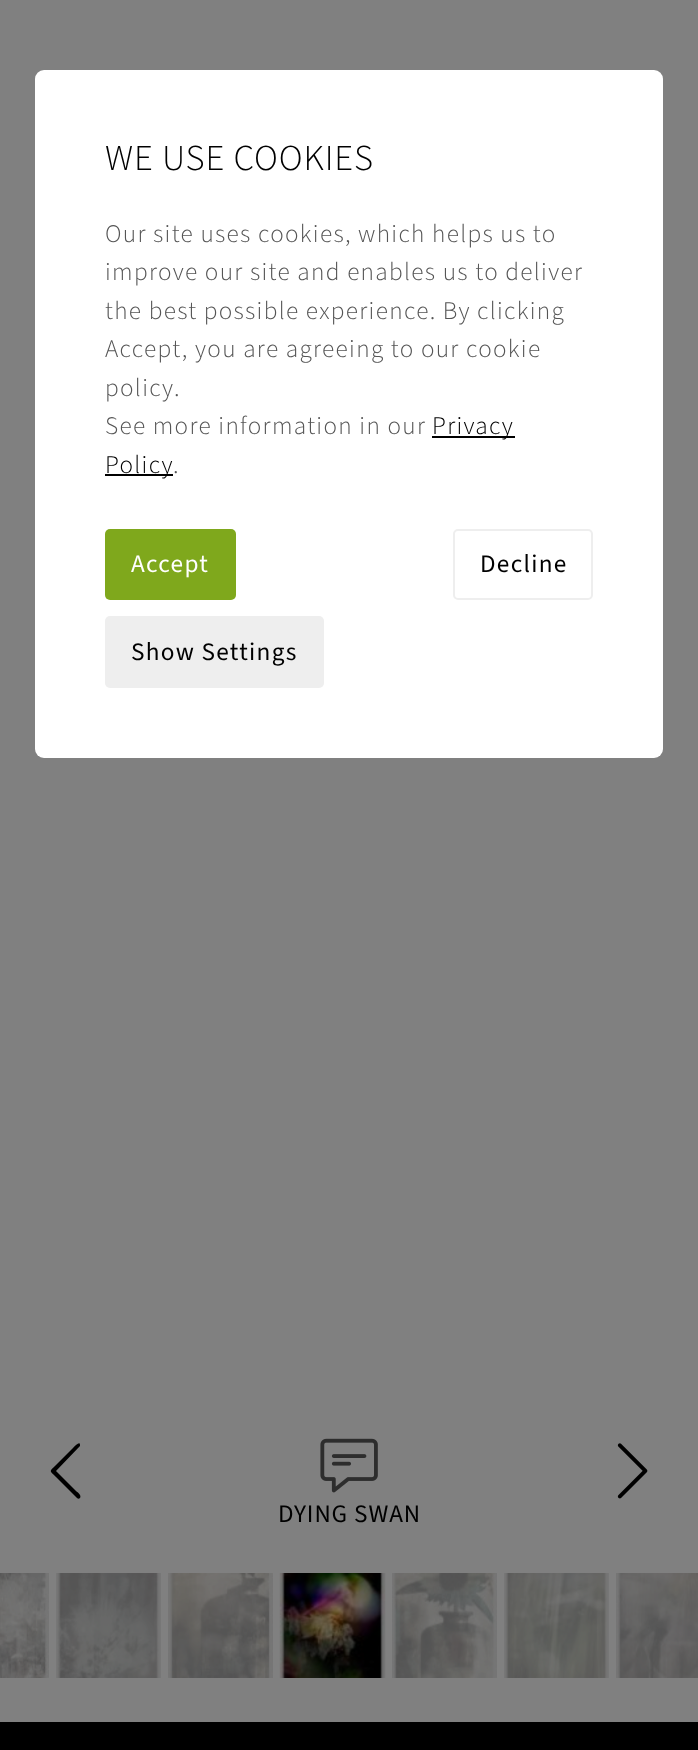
<svg xmlns="http://www.w3.org/2000/svg" width="698" height="1750" viewBox="0 0 698 1750">
  <style>
    .t1 { font: 300 36.5px 'Source Sans 3'; letter-spacing: 0.9px; fill: #000; }
    .t2 { font: 300 25.25px 'Source Sans 3'; letter-spacing: 1.3px; fill: #555; }
    .t3 { font: 300 25.25px 'Source Sans 3'; letter-spacing: 1.3px; fill: #000; }
    .t4 { font: 25.25px 'Source Sans 3'; letter-spacing: 1.3px; fill: #fff; }
    .t5 { font: 25.25px 'Source Sans 3'; letter-spacing: 1.3px; fill: #000; }
    .t6 { font: 25.25px 'Source Sans 3'; letter-spacing: 0.9px; fill: #000; }
  </style>
  <rect width="100%" height="100%" fill="#808080"/>
  <rect x="35" y="70" width="628" height="688" rx="9" fill="#fff"/>
  <text x="105" y="170" class="t1">WE USE COOKIES</text>
  <text x="105" y="242" class="t2">Our site uses cookies, which helps us to</text>
  <text x="105" y="280" class="t2">improve our site and enables us to deliver</text>
  <text x="105" y="319" class="t2">the best possible experience. By clicking</text>
  <text x="105" y="357" class="t2">Accept, you are agreeing to our cookie</text>
  <text x="105" y="396" class="t2">policy.</text>
  <text x="105" y="434" class="t2">See more information in our</text>
  <rect x="432" y="436" width="83" height="2" fill="#000"/>
  <text x="432" y="434" class="t3">Privacy</text>
  <rect x="105" y="474" width="68" height="2" fill="#000"/>
  <text x="105" y="473" class="t3">Policy</text>
  <text x="173" y="473" class="t2">.</text>
  <rect x="105" y="529" width="131" height="71" rx="5" fill="#7fa81c"/>
  <text x="131" y="572" class="t4">Accept</text>
  <rect x="454" y="530" width="138" height="69" rx="4" fill="none" stroke="#eee" stroke-width="2"/>
  <text x="480" y="572" class="t5">Decline</text>
  <rect x="105" y="616" width="219" height="72" rx="5" fill="#eee"/>
  <text x="131" y="660" class="t5">Show Settings</text>
  <path d="M77 1498C78 1499 79 1499 80 1498C82 1495 77 1492 76 1491L56 1471L80 1446V1445C80 1441 76 1445 73 1448L56 1465C49 1472 49 1470 56 1477Z" fill="#000"/>
  <image x="320" y="1438" width="58" height="55" href="images/1.png"/>
  <image x="617" y="1443" width="31" height="56" href="images/2.png"/>
  <text x="278" y="1522" class="t6">DYING SWAN</text>
  <rect x="0" y="1573" width="49" height="105" fill="#777"/>
  <image x="0" y="1573" width="49" height="105" href="images/3.png"/>
  <rect x="56" y="1573" width="105" height="105" fill="#777"/>
  <image x="57" y="1573" width="103" height="105" href="images/4.png"/>
  <rect x="168" y="1573" width="105" height="105" fill="#777"/>
  <image x="168" y="1573" width="105" height="105" href="images/5.png"/>
  <image x="279" y="1573" width="107" height="105" href="images/6.png"/>
  <rect x="392" y="1573" width="105" height="105" fill="#777"/>
  <image x="392" y="1573" width="105" height="105" href="images/7.png"/>
  <rect x="504" y="1573" width="105" height="105" fill="#777"/>
  <image x="505" y="1573" width="103" height="105" href="images/8.png"/>
  <rect x="616" y="1573" width="82" height="105" fill="#777"/>
  <image x="616" y="1573" width="82" height="105" href="images/9.png"/>
  <rect x="0" y="1722" width="698" height="28" fill="#000"/>
</svg>
